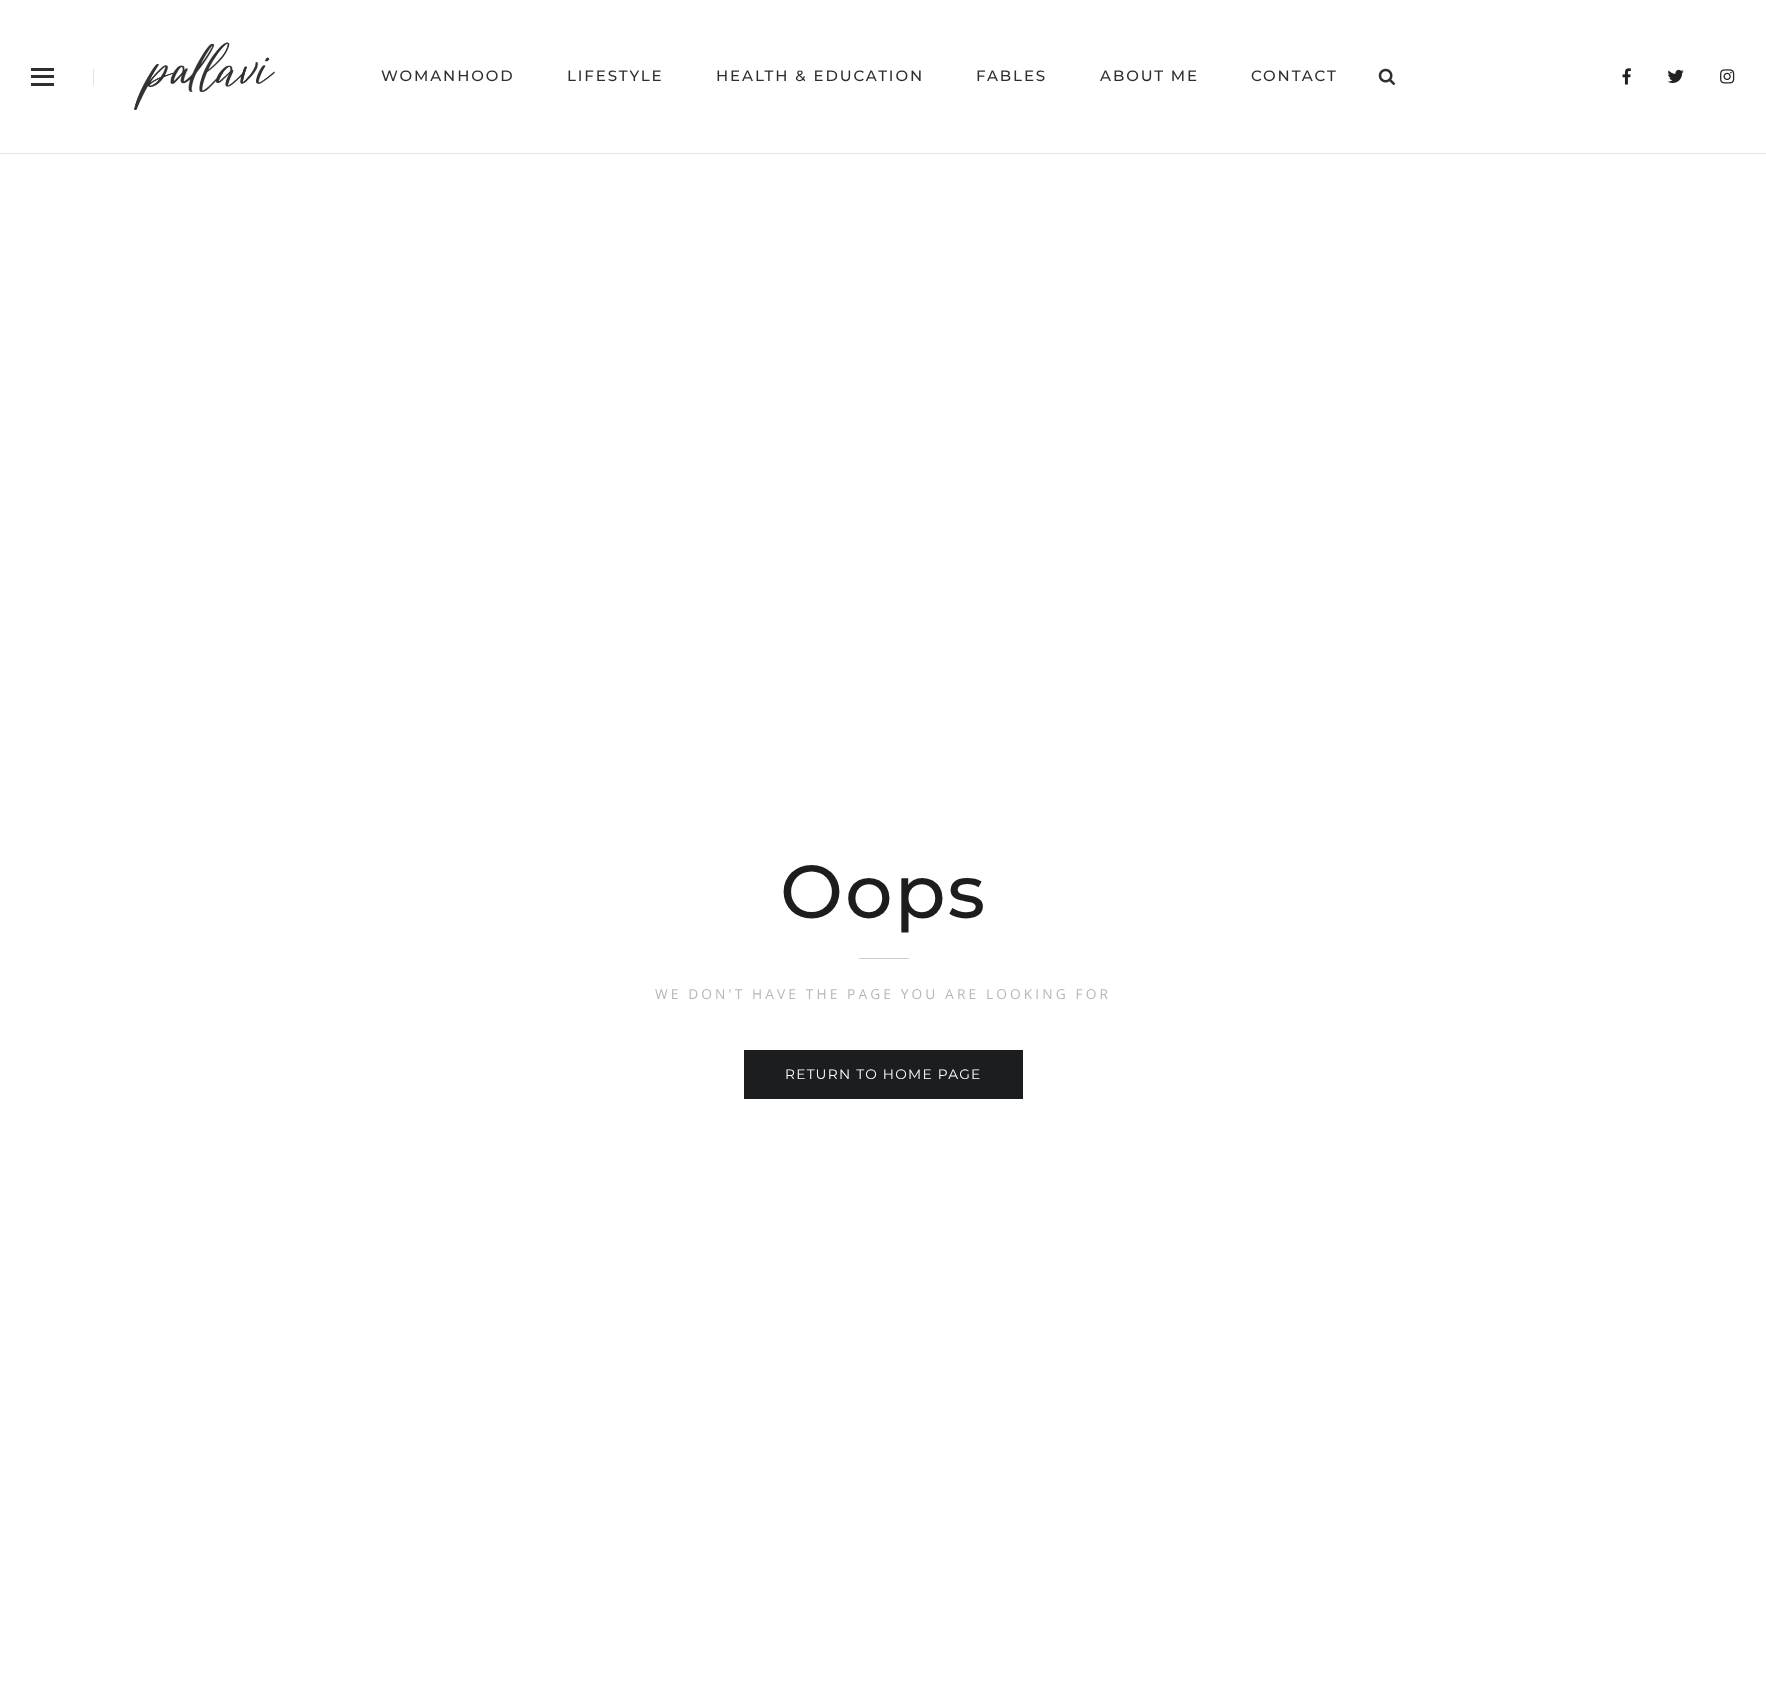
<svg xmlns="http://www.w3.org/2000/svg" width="1766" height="1691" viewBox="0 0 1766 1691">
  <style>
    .t1 { font: 500 15px Montserrat; letter-spacing: 1.9px; fill: #2c2e30; }
    .t2 { font: 500 75px Montserrat; letter-spacing: 1.9px; fill: #1c1d1f; }
    .t3 { font: 13.75px Open Sans; letter-spacing: 3.1px; fill: #b8b6bb; }
    .t4 { font: 13.75px Montserrat; letter-spacing: 1.25px; fill: #fff; }
  </style>
  <rect width="100%" height="100%" fill="#fff"/>
  <rect x="0" y="153" width="1766" height="1" fill="#e5e6e8"/>
  <rect x="31" y="68" width="23" height="3" fill="#2c2e30"/>
  <rect x="93" y="69" width="1" height="16" fill="#e1e1e1"/>
  <rect x="31" y="75" width="23" height="3" fill="#2c2e30"/>
  <rect x="31" y="83" width="23" height="3" fill="#2c2e30"/>
  <image x="134" y="42" width="141" height="68" href="images/1.png"/>
  <text x="381" y="81" class="t1">WOMANHOOD</text>
  <text x="567" y="81" class="t1">LIFESTYLE</text>
  <text x="716" y="81" class="t1">HEALTH &amp; EDUCATION</text>
  <text x="976" y="81" class="t1">FABLES</text>
  <text x="1100" y="81" class="t1">ABOUT ME</text>
  <text x="1251" y="81" class="t1">CONTACT</text>
  <image x="1378" y="68" width="17" height="17" href="images/2.png"/>
  <image x="1622" y="68" width="9" height="17" href="images/3.png"/>
  <image x="1667" y="69" width="17" height="14" href="images/4.png"/>
  <image x="1720" y="69" width="15" height="15" href="images/5.png"/>
  <text x="780" y="918" class="t2">Oops</text>
  <rect x="859" y="958" width="50" height="1" fill="#ccc"/>
  <text x="655" y="999" class="t3">WE DON'T HAVE THE PAGE YOU ARE LOOKING FOR</text>
  <rect x="744" y="1050" width="279" height="49" fill="#1c1d1f"/>
  <text x="785" y="1079" class="t4">RETURN TO HOME PAGE</text>
</svg>
